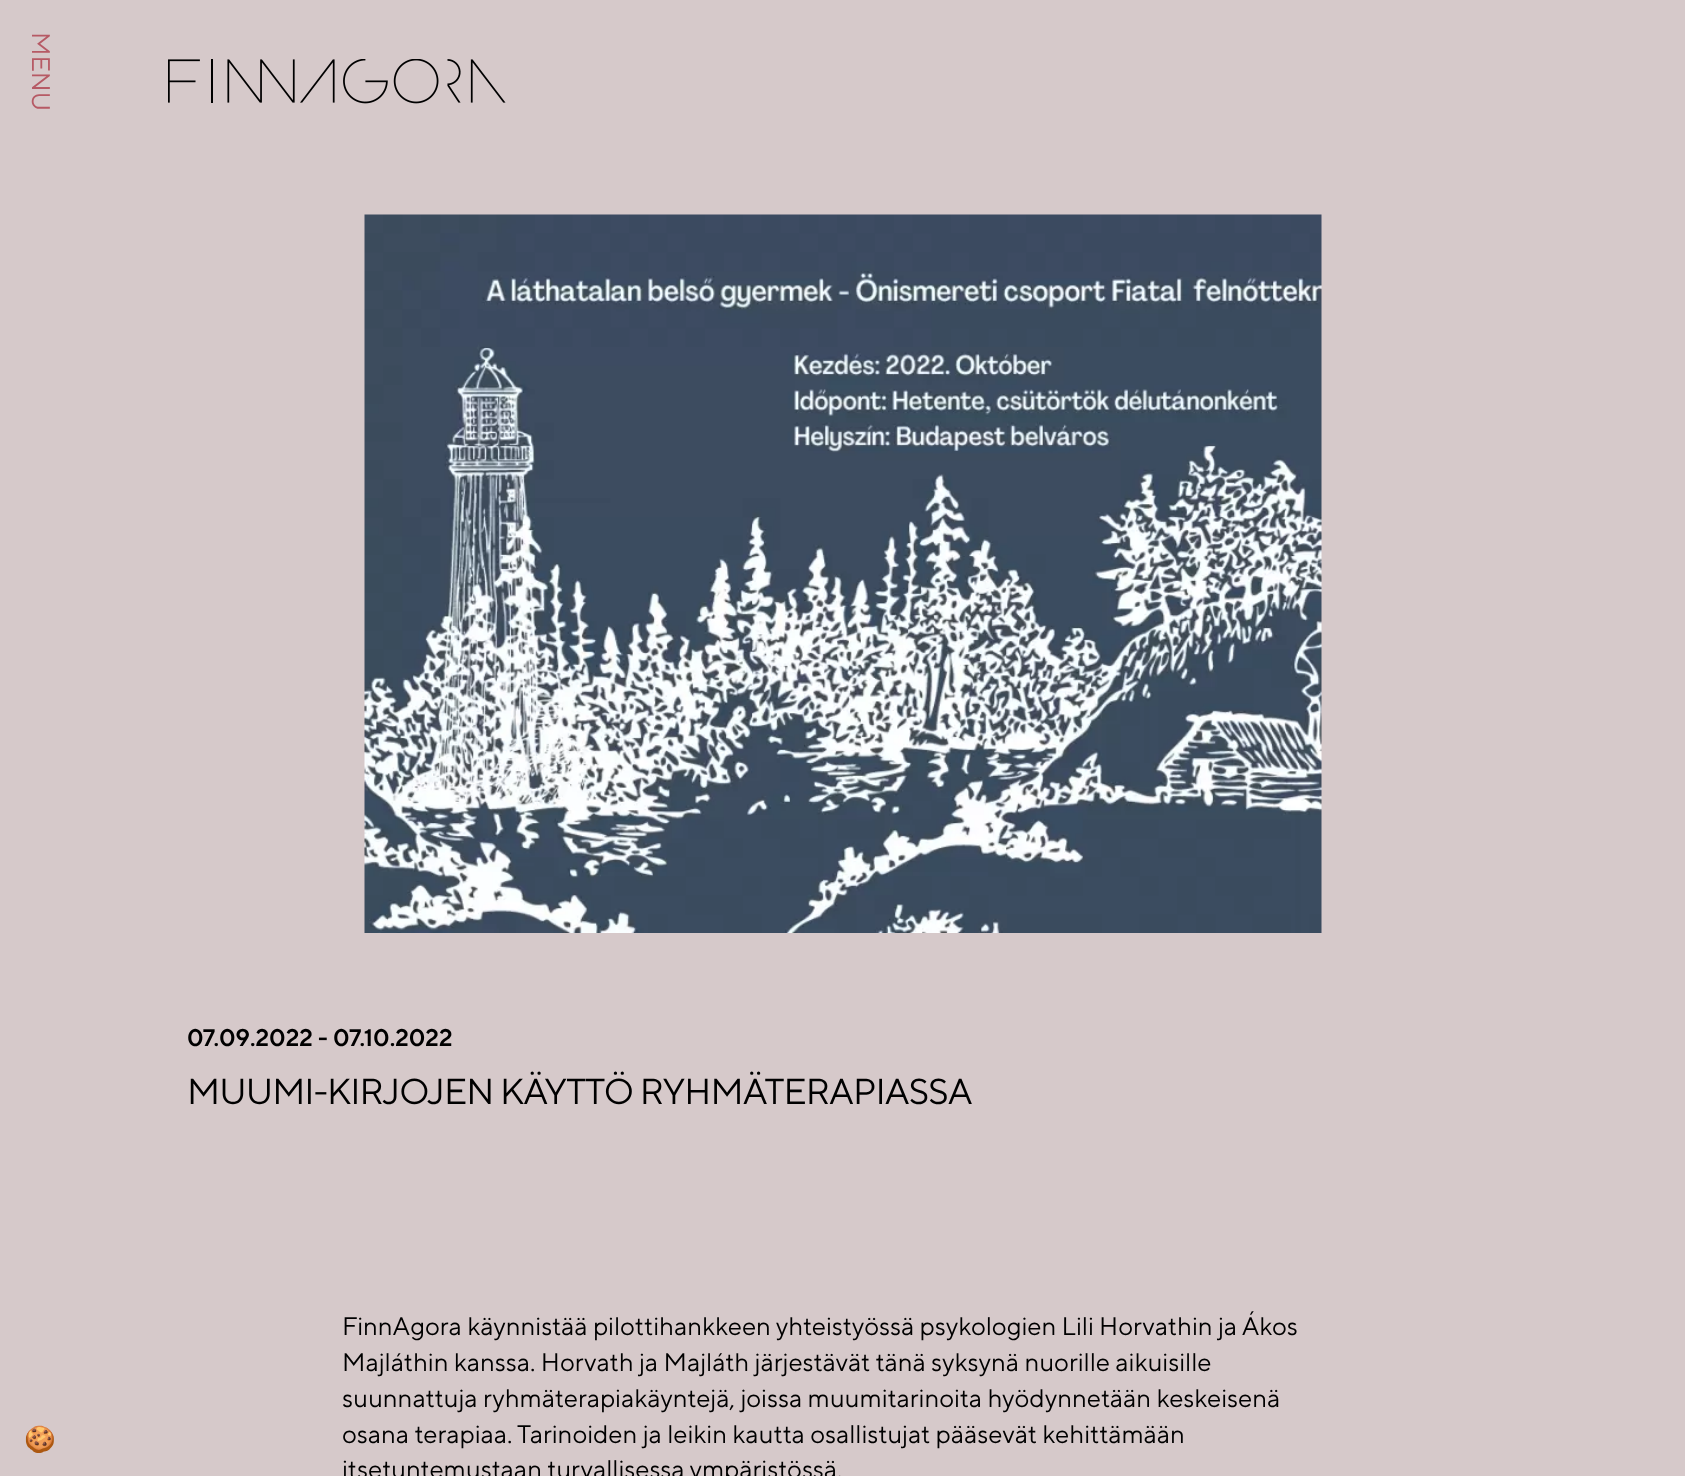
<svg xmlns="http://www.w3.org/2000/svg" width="1685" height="1476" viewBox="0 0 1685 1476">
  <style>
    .t1 { font: 25.5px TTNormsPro; fill: #b65a65; }
    .t2 { font: 25.5px Noto Color Emoji; fill: #000; }
    .t3 { font: 600 24px TT Norms Pro; fill: #000; }
    .t4 { font: 36px TTNormsPro; letter-spacing: -0.9px; fill: #000; }
    .t5 { font: 25.5px TTNormsPro; fill: #000; }
  </style>
  <rect width="100%" height="100%" fill="#d6c9ca"/>
  <text x="32" y="32" transform="rotate(90 32 32)" class="t1">MENU</text>
  <image x="168" y="59" width="338" height="45" href="images/1.png"/>
  <text x="24" y="1448" class="t2">🍪</text>
  <image x="364" y="214" width="958" height="719" href="images/2.png"/>
  <text x="187" y="1046" class="t3">07.09.2022 - 07.10.2022</text>
  <text x="187" y="1104" class="t4">MUUMI-KIRJOJEN KÄYTTÖ RYHMÄTERAPIASSA</text>
  <text x="342" y="1335" class="t5">FinnAgora käynnistää pilottihankkeen yhteistyössä psykologien Lili Horvathin ja Ákos</text>
  <text x="342" y="1371" class="t5">Majláthin kanssa. Horvath ja Majláth järjestävät tänä syksynä nuorille aikuisille</text>
  <text x="342" y="1407" class="t5">suunnattuja ryhmäterapiakäyntejä, joissa muumitarinoita hyödynnetään keskeisenä</text>
  <text x="342" y="1443" class="t5">osana terapiaa. Tarinoiden ja leikin kautta osallistujat pääsevät kehittämään</text>
  <text x="342" y="1478" class="t5">itsetuntemustaan turvallisessa ympäristössä.</text>
</svg>
